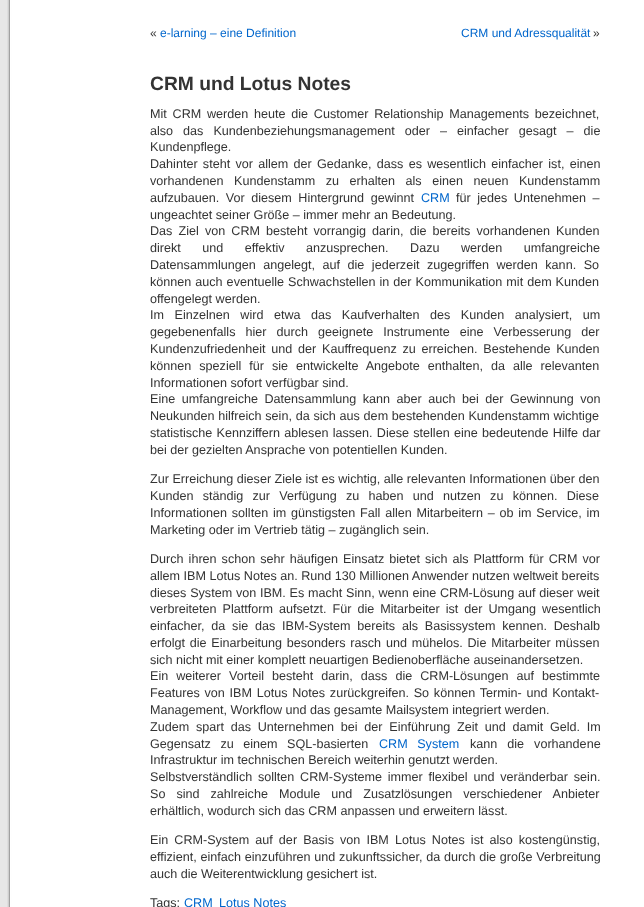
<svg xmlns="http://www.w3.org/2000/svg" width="644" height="907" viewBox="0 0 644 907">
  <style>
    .t1 { font: 12px Liberation Sans; fill: #333; }
    .t2 { font: 12px Liberation Sans; fill: #06c; }
    .t3 { font: bold 19.25px Liberation Sans; fill: #333; }
    .t4 { font: 12.6px Liberation Sans; fill: #333; }
    .t5 { font: 12.6px Liberation Sans; fill: #06c; }
  </style>
  <rect width="100%" height="100%" fill="#e7e7e7"/>
  <image x="7" y="0" width="637" height="907" href="images/1.png"/>
  <text x="150" y="37" class="t1">«</text>
  <text x="160" y="37" class="t2">e-larning – eine Definition</text>
  <text x="461" y="37" class="t2">CRM und Adressqualität</text>
  <text x="593" y="37" class="t1">»</text>
  <text x="150" y="90" class="t3">CRM und Lotus Notes</text>
  <text x="150" y="118" word-spacing="2.25" class="t4">Mit CRM werden heute die Customer Relationship Managements bezeichnet,</text>
  <text x="150" y="135" word-spacing="6.5" class="t4">also das Kundenbeziehungsmanagement oder – einfacher gesagt – die</text>
  <text x="150" y="151" class="t4">Kundenpflege.</text>
  <text x="150" y="168" word-spacing="1.75" class="t4">Dahinter steht vor allem der Gedanke, dass es wesentlich einfacher ist, einen</text>
  <text x="150" y="185" word-spacing="7" class="t4">vorhandenen Kundenstamm zu erhalten als einen neuen Kundenstamm</text>
  <text x="150" y="202" word-spacing="3" class="t4">aufzubauen. Vor diesem Hintergrund gewinnt</text>
  <text x="421" y="202" class="t5">CRM</text>
  <text x="456" y="202" word-spacing="3" class="t4">für jedes Untenehmen –</text>
  <text x="150" y="219" class="t4">ungeachtet seiner Größe – immer mehr an Bedeutung.</text>
  <text x="150" y="235" word-spacing="2.6" class="t4">Das Ziel von CRM besteht vorrangig darin, die bereits vorhandenen Kunden</text>
  <text x="150" y="252" word-spacing="18" class="t4">direkt und effektiv anzusprechen. Dazu werden umfangreiche</text>
  <text x="150" y="269" word-spacing="4" class="t4">Datensammlungen angelegt, auf die jederzeit zugegriffen werden kann. So</text>
  <text x="150" y="286" word-spacing="0.5" class="t4">können auch eventuelle Schwachstellen in der Kommunikation mit dem Kunden</text>
  <text x="150" y="303" class="t4">offengelegt werden.</text>
  <text x="150" y="319" word-spacing="7" class="t4">Im Einzelnen wird etwa das Kaufverhalten des Kunden analysiert, um</text>
  <text x="150" y="336" word-spacing="6.5" class="t4">gegebenenfalls hier durch geeignete Instrumente eine Verbesserung der</text>
  <text x="150" y="353" word-spacing="2.25" class="t4">Kundenzufriedenheit und der Kauffrequenz zu erreichen. Bestehende Kunden</text>
  <text x="150" y="370" word-spacing="4.5" class="t4">können speziell für sie entwickelte Angebote enthalten, da alle relevanten</text>
  <text x="150" y="387" class="t4">Informationen sofort verfügbar sind.</text>
  <text x="150" y="403" word-spacing="3" class="t4">Eine umfangreiche Datensammlung kann aber auch bei der Gewinnung von</text>
  <text x="150" y="420" word-spacing="0.25" class="t4">Neukunden hilfreich sein, da sich aus dem bestehenden Kundenstamm wichtige</text>
  <text x="150" y="437" word-spacing="0.75" class="t4">statistische Kennziffern ablesen lassen. Diese stellen eine bedeutende Hilfe dar</text>
  <text x="150" y="454" class="t4">bei der gezielten Ansprache von potentiellen Kunden.</text>
  <text x="150" y="483" class="t4">Zur Erreichung dieser Ziele ist es wichtig, alle relevanten Informationen über den</text>
  <text x="150" y="500" word-spacing="5.75" class="t4">Kunden ständig zur Verfügung zu haben und nutzen zu können. Diese</text>
  <text x="150" y="517" word-spacing="1.25" class="t4">Informationen sollten im günstigsten Fall allen Mitarbeitern – ob im Service, im</text>
  <text x="150" y="534" class="t4">Marketing oder im Vertrieb tätig – zugänglich sein.</text>
  <text x="150" y="563" word-spacing="1.5" class="t4">Durch ihren schon sehr häufigen Einsatz bietet sich als Plattform für CRM vor</text>
  <text x="150" y="580" class="t4">allem IBM Lotus Notes an. Rund 130 Millionen Anwender nutzen weltweit bereits</text>
  <text x="150" y="597" word-spacing="0.25" class="t4">dieses System von IBM. Es macht Sinn, wenn eine CRM-Lösung auf dieser weit</text>
  <text x="150" y="613" word-spacing="2.5" class="t4">verbreiteten Plattform aufsetzt. Für die Mitarbeiter ist der Umgang wesentlich</text>
  <text x="150" y="630" word-spacing="3.25" class="t4">einfacher, da sie das IBM-System bereits als Basissystem kennen. Deshalb</text>
  <text x="150" y="647" word-spacing="1.25" class="t4">erfolgt die Einarbeitung besonders rasch und mühelos. Die Mitarbeiter müssen</text>
  <text x="150" y="664" class="t4">sich nicht mit einer komplett neuartigen Bedienoberfläche auseinandersetzen.</text>
  <text x="150" y="680" word-spacing="4.5" class="t4">Ein weiterer Vorteil besteht darin, dass die CRM-Lösungen auf bestimmte</text>
  <text x="150" y="697" word-spacing="1.25" class="t4">Features von IBM Lotus Notes zurückgreifen. So können Termin- und Kontakt-</text>
  <text x="150" y="714" class="t4">Management, Workflow und das gesamte Mailsystem integriert werden.</text>
  <text x="150" y="731" word-spacing="3.25" class="t4">Zudem spart das Unternehmen bei der Einführung Zeit und damit Geld. Im</text>
  <text x="150" y="748" word-spacing="6" class="t4">Gegensatz zu einem SQL-basierten</text>
  <text x="379" y="748" word-spacing="6" class="t5">CRM System</text>
  <text x="470" y="748" word-spacing="6.5" class="t4">kann die vorhandene</text>
  <text x="150" y="764" class="t4">Infrastruktur im technischen Bereich weiterhin genutzt werden.</text>
  <text x="150" y="781" word-spacing="2.25" class="t4">Selbstverständlich sollten CRM-Systeme immer flexibel und veränderbar sein.</text>
  <text x="150" y="798" word-spacing="7.5" class="t4">So sind zahlreiche Module und Zusatzlösungen verschiedener Anbieter</text>
  <text x="150" y="815" class="t4">erhältlich, wodurch sich das CRM anpassen und erweitern lässt.</text>
  <text x="150" y="844" word-spacing="2.6" class="t4">Ein CRM-System auf der Basis von IBM Lotus Notes ist also kostengünstig,</text>
  <text x="150" y="861" word-spacing="0.25" class="t4">effizient, einfach einzuführen und zukunftssicher, da durch die große Verbreitung</text>
  <text x="150" y="878" class="t4">auch die Weiterentwicklung gesichert ist.</text>
  <text x="150" y="907" class="t4">Tags:</text>
  <text x="184" y="907" class="t5">CRM</text>
  <text x="219" y="907" class="t5">Lotus Notes</text>
</svg>
